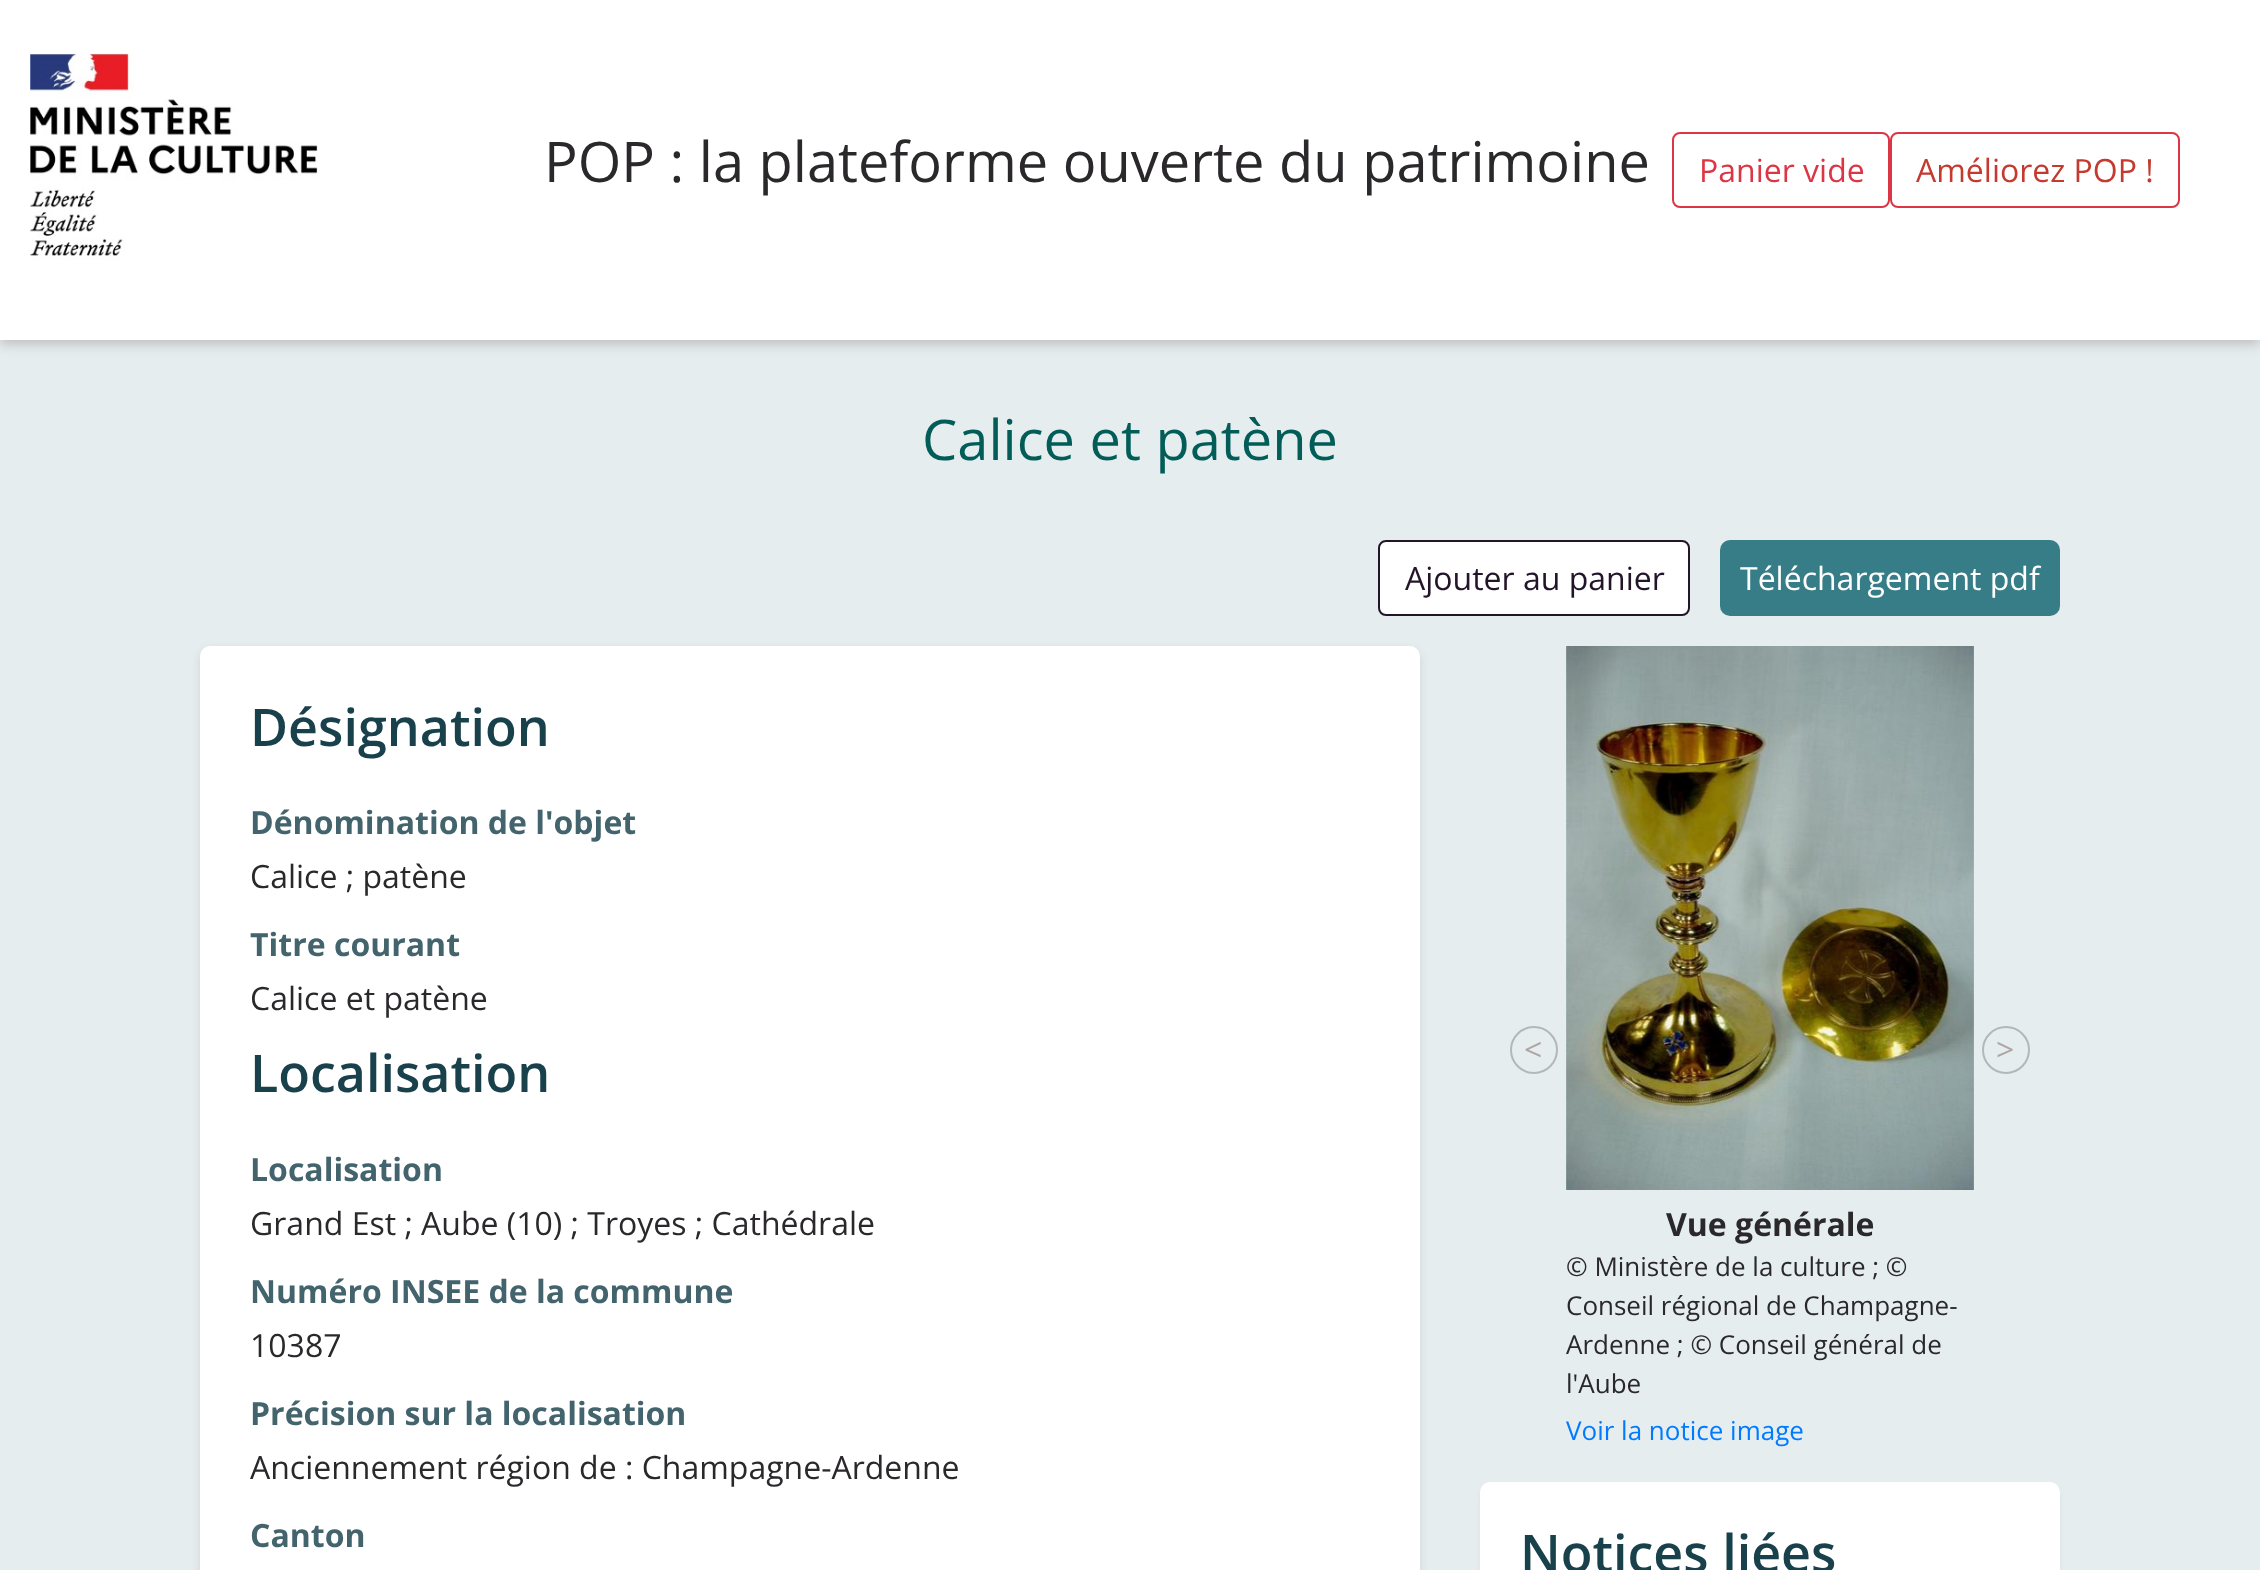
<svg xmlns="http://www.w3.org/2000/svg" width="2260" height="1570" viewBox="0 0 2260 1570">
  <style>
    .t1 { font: 56px Open Sans; fill: #2a282b; }
    .t2 { font: 32px Open Sans; fill: #dc3545; }
    .t3 { font: 32px Open Sans; fill: #c43a2f; }
    .t4 { font: 56px Open Sans; fill: #025d59; }
    .t5 { font: 32px Open Sans; fill: #221529; }
    .t6 { font: 32px Open Sans; fill: #fff; }
    .t7 { font: 600 52px Open Sans; fill: #19414c; }
    .t8 { font: bold 32px Open Sans; fill: #43646d; }
    .t9 { font: 32px Open Sans; fill: #2a282b; }
    .t10 { font: 32px Open Sans; fill: #afa5a4; }
    .t11 { font: bold 32px Open Sans; fill: #2a282b; }
    .t12 { font: 26px Open Sans; fill: #2a282b; }
    .t13 { font: 26px Open Sans; fill: #007bff; }
  </style>
  <rect width="100%" height="100%" fill="#e5edef"/>
  <rect x="0" y="4" width="2260" height="340" fill="#bdbdbd" filter="blur(6px)"/>
  <rect x="0" y="0" width="2260" height="340" fill="#fff"/>
  <image x="30" y="53" width="288" height="207" href="images/1.png"/>
  <text x="544" y="182" class="t1">POP : la plateforme ouverte du patrimoine</text>
  <rect x="1673" y="133" width="216" height="74" rx="7" fill="none" stroke="#dc3545" stroke-width="2"/>
  <text x="1699" y="182" class="t2">Panier vide</text>
  <rect x="1891" y="133" width="288" height="74" rx="7" fill="none" stroke="#dc3545" stroke-width="2"/>
  <text x="1916" y="182" class="t3">Améliorez POP !</text>
  <text x="922" y="460" class="t4">Calice et patène</text>
  <rect x="1379" y="541" width="310" height="74" rx="7" fill="#fff" stroke="#221529" stroke-width="2"/>
  <text x="1405" y="590" class="t5">Ajouter au panier</text>
  <rect x="1720" y="540" width="340" height="76" rx="10" fill="#377d87"/>
  <text x="1740" y="590" class="t6">Téléchargement pdf</text>
  <rect x="200" y="650" width="1220" height="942" rx="10" fill="#bdbdbd80" filter="blur(4px)"/>
  <rect x="200" y="646" width="1220" height="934" rx="10" fill="#fff"/>
  <text x="250" y="746" class="t7">Désignation</text>
  <text x="250" y="834" class="t8">Dénomination de l'objet</text>
  <text x="250" y="888" class="t9">Calice ; patène</text>
  <text x="250" y="956" class="t8">Titre courant</text>
  <text x="250" y="1010" class="t9">Calice et patène</text>
  <text x="250" y="1092" class="t7">Localisation</text>
  <text x="250" y="1181" class="t8">Localisation</text>
  <text x="250" y="1235" class="t9">Grand Est ; Aube (10) ; Troyes ; Cathédrale</text>
  <text x="250" y="1303" class="t8">Numéro INSEE de la commune</text>
  <text x="250" y="1357" class="t9">10387</text>
  <text x="250" y="1425" class="t8">Précision sur la localisation</text>
  <text x="250" y="1479" class="t9">Anciennement région de : Champagne-Ardenne</text>
  <text x="250" y="1547" class="t8">Canton</text>
  <circle cx="1534" cy="1050" r="23" fill="none" stroke="#b3b7b8" stroke-width="2"/>
  <text x="1524" y="1061" class="t10">&lt;</text>
  <circle cx="2006" cy="1050" r="23" fill="none" stroke="#b3b7b8" stroke-width="2"/>
  <text x="1996" y="1061" class="t10">&gt;</text>
  <image x="1566" y="646" width="408" height="544" href="images/2.png"/>
  <text x="1666" y="1236" class="t11">Vue générale</text>
  <text x="1566" y="1276" class="t12">© Ministère de la culture ; ©</text>
  <text x="1566" y="1315" class="t12">Conseil régional de Champagne-</text>
  <text x="1566" y="1354" class="t12">Ardenne ; © Conseil général de</text>
  <text x="1566" y="1393" class="t12">l'Aube</text>
  <text x="1566" y="1440" class="t13">Voir la notice image</text>
  <rect x="1480" y="1486" width="580" height="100" rx="10" fill="#d7d7d780" filter="blur(2px)"/>
  <rect x="1480" y="1482" width="580" height="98" rx="10" fill="#fff"/>
  <text x="1520" y="1572" class="t7">Notices liées</text>
</svg>
